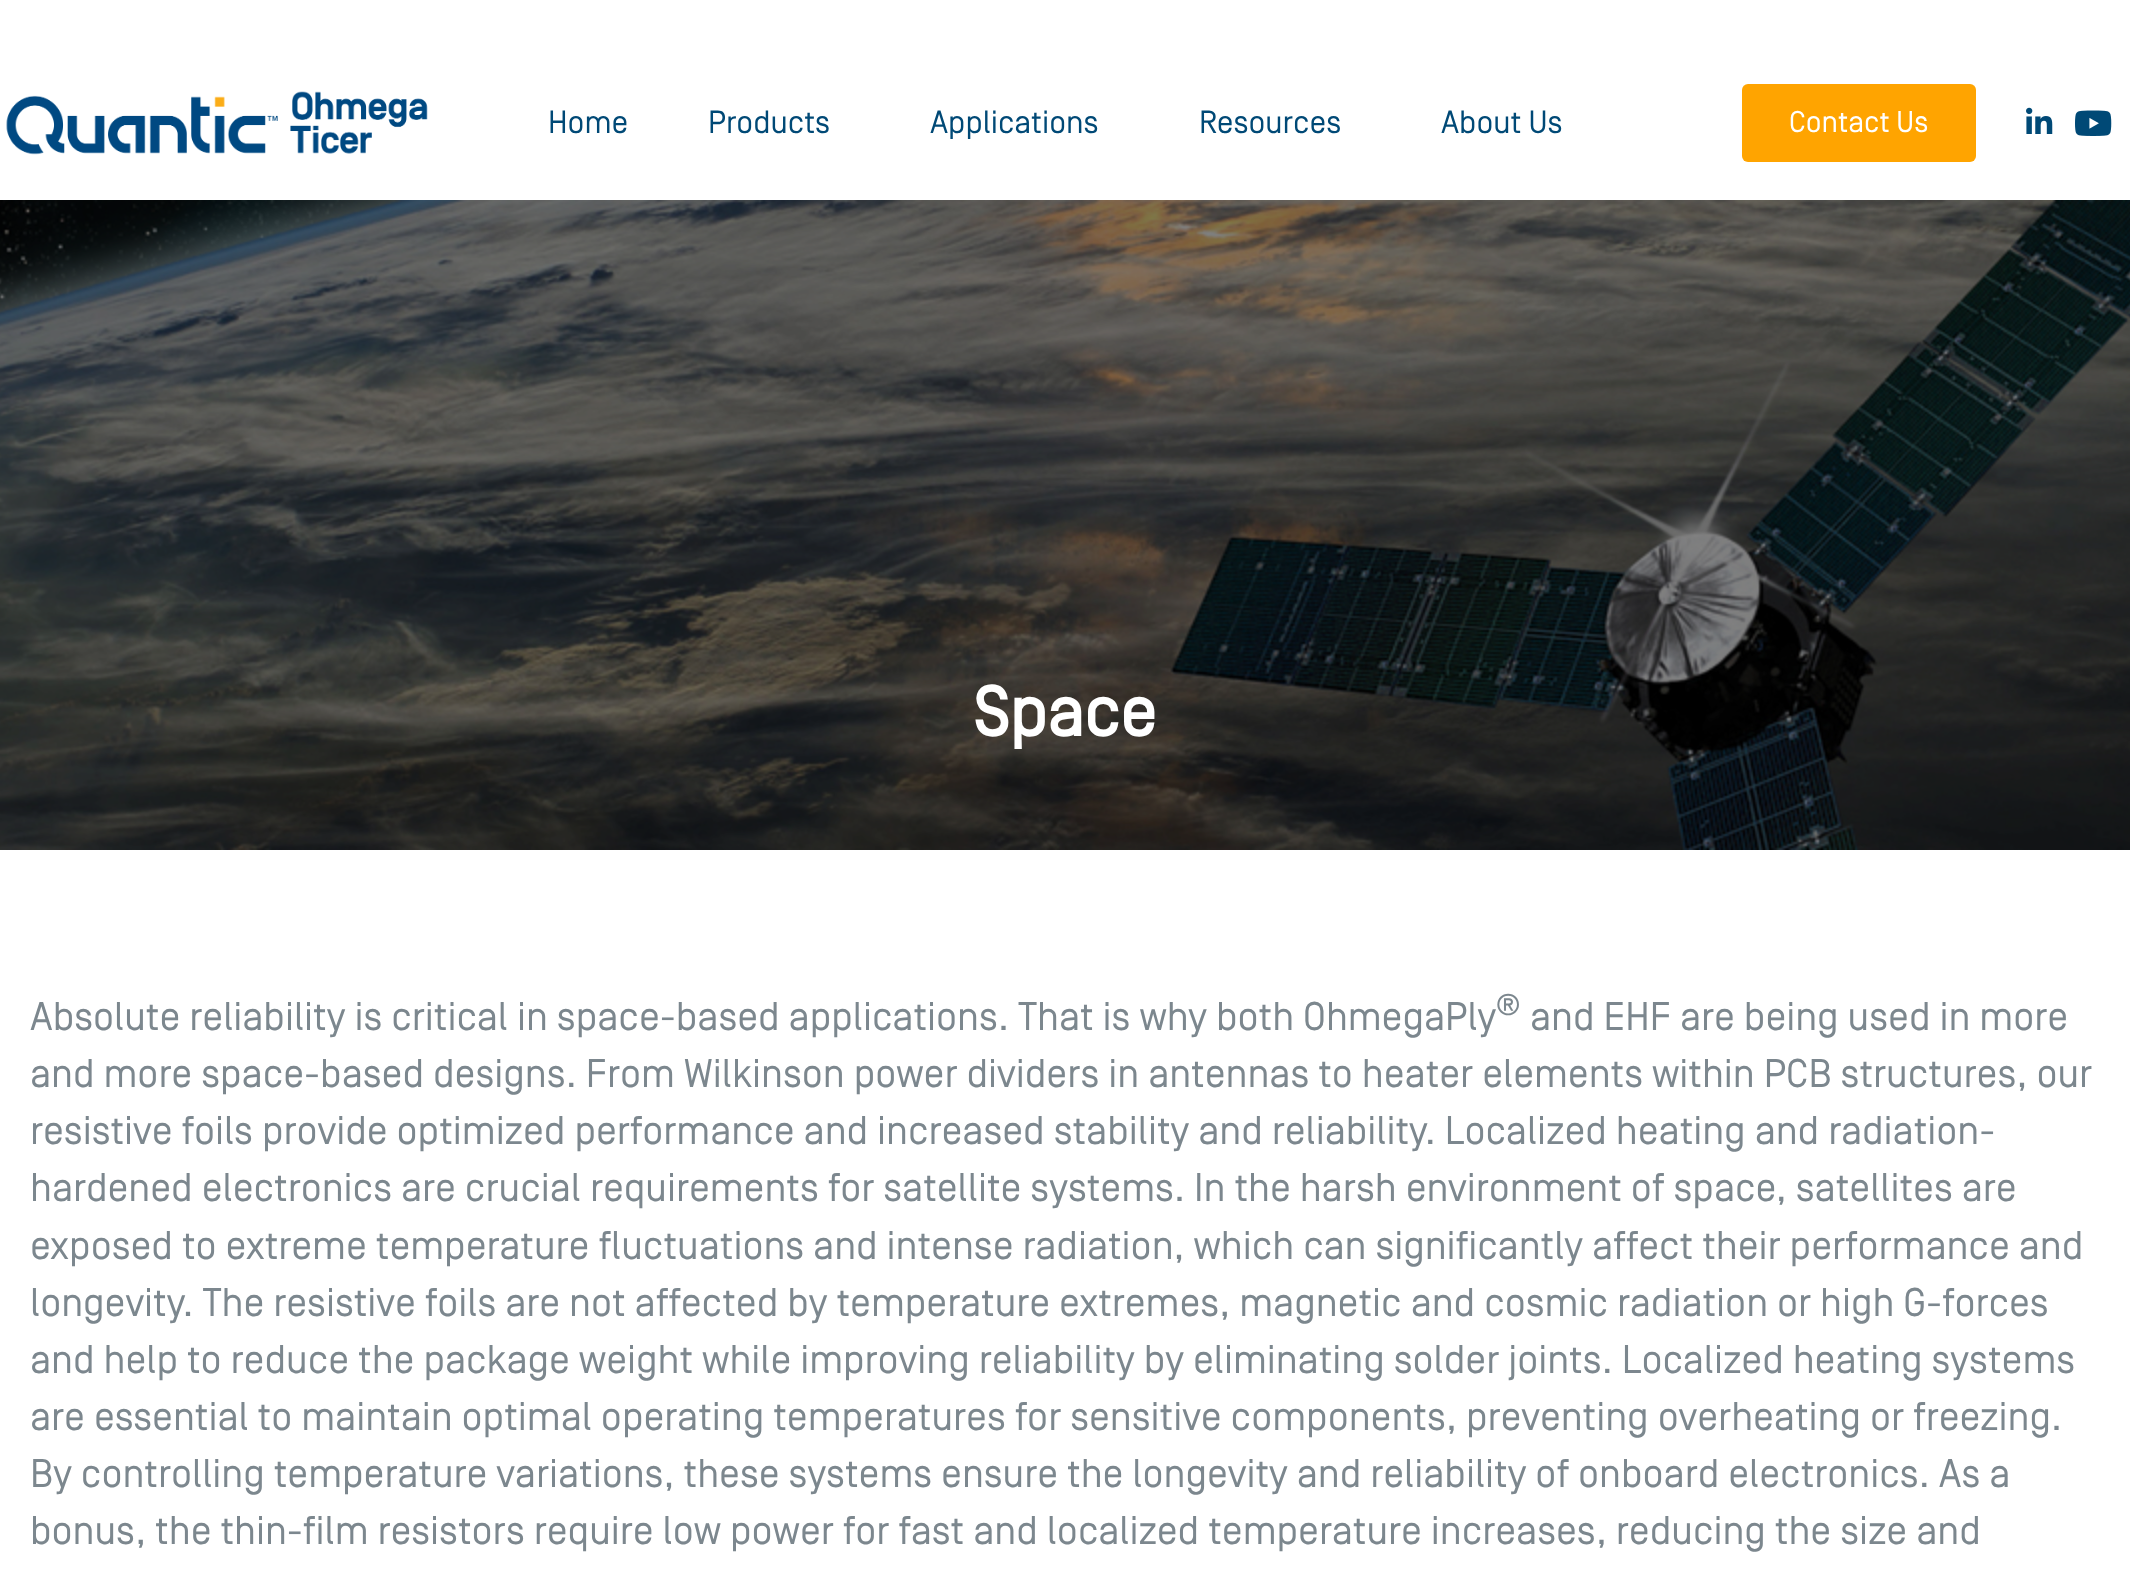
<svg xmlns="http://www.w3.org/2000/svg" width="2130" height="1586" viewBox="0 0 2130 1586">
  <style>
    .t1 { font: 32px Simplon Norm; fill: #004976; }
    .t2 { font: 30px Simplon Norm; fill: #fff; }
    .t3 { font: bold 70px Simplon Norm; fill: #fff; }
    .t4 { font: 40px Simplon Norm; fill: #7c878e; }
    .t5 { font: 30px Simplon Norm; fill: #7c878e; }
  </style>
  <rect width="100%" height="100%" fill="#fff"/>
  <image x="6" y="91" width="422" height="64" href="images/1.png"/>
  <text x="548" y="133" class="t1">Home</text>
  <text x="708" y="133" class="t1">Products</text>
  <text x="930" y="133" class="t1">Applications</text>
  <text x="1199" y="133" class="t1">Resources</text>
  <text x="1441" y="133" class="t1">About Us</text>
  <rect x="1742" y="84" width="234" height="78" rx="6" fill="#ffa400"/>
  <text x="1789" y="132" class="t2">Contact Us</text>
  <image x="2026" y="107" width="27" height="27" href="images/2.png"/>
  <image x="2075" y="110" width="37" height="26" href="images/3.png"/>
  <image x="0" y="200" width="2130" height="650" href="images/4.png"/>
  <text x="973" y="736" class="t3">Space</text>
  <text x="30" y="1030" class="t4">Absolute reliability is critical in space-based applications. That is why both OhmegaPly</text>
  <text x="1496" y="1015" class="t5">®</text>
  <text x="1530" y="1030" class="t4">and EHF are being used in more</text>
  <text x="30" y="1087" class="t4">and more space-based designs. From Wilkinson power dividers in antennas to heater elements within PCB structures, our</text>
  <text x="30" y="1144" class="t4">resistive foils provide optimized performance and increased stability and reliability. Localized heating and radiation-</text>
  <text x="30" y="1201" class="t4">hardened electronics are crucial requirements for satellite systems. In the harsh environment of space, satellites are</text>
  <text x="30" y="1259" class="t4">exposed to extreme temperature fluctuations and intense radiation, which can significantly affect their performance and</text>
  <text x="30" y="1316" class="t4">longevity. The resistive foils are not affected by temperature extremes, magnetic and cosmic radiation or high G-forces</text>
  <text x="30" y="1373" class="t4">and help to reduce the package weight while improving reliability by eliminating solder joints. Localized heating systems</text>
  <text x="30" y="1430" class="t4">are essential to maintain optimal operating temperatures for sensitive components, preventing overheating or freezing.</text>
  <text x="30" y="1487" class="t4">By controlling temperature variations, these systems ensure the longevity and reliability of onboard electronics. As a</text>
  <text x="30" y="1544" class="t4">bonus, the thin-film resistors require low power for fast and localized temperature increases, reducing the size and</text>
</svg>
